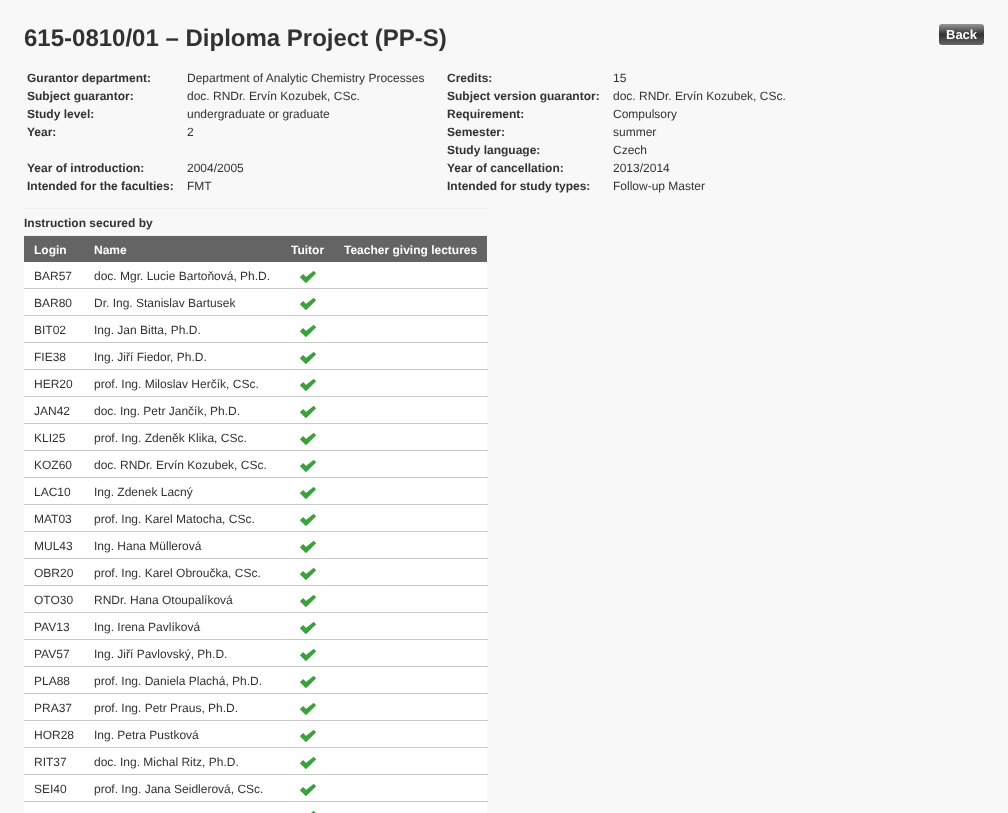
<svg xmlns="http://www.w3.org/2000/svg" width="1008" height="813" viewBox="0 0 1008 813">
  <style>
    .t1 { font: bold 24px Liberation Sans; fill: #323232; }
    .t2 { font: bold 12px Liberation Sans; fill: #323232; }
    .t3 { font: 12px Liberation Sans; fill: #323232; }
    .t4 { font: bold 12px Liberation Sans; fill: #fff; }
    .t5 { font: bold 13px Liberation Sans; fill: #fff; }
  </style>
  <defs>
    <linearGradient id="g1" gradientUnits="userSpaceOnUse" x1="962" y1="24" x2="962" y2="45"><stop offset="0" stop-color="#969696"/><stop offset="0.5" stop-color="#323232"/><stop offset="1" stop-color="#646464"/></linearGradient>
  </defs>
  <rect width="100%" height="100%" fill="#f8f8f8"/>
  <text x="24" y="46" class="t1">615-0810/01 – Diploma Project (PP-S)</text>
  <text x="27" y="82" class="t2">Gurantor department:</text>
  <text x="187" y="82" class="t3">Department of Analytic Chemistry Processes</text>
  <text x="447" y="82" class="t2">Credits:</text>
  <text x="613" y="82" class="t3">15</text>
  <text x="27" y="100" class="t2">Subject guarantor:</text>
  <text x="187" y="100" class="t3">doc. RNDr. Ervín Kozubek, CSc.</text>
  <text x="447" y="100" class="t2">Subject version guarantor:</text>
  <text x="613" y="100" class="t3">doc. RNDr. Ervín Kozubek, CSc.</text>
  <text x="27" y="118" class="t2">Study level:</text>
  <text x="187" y="118" class="t3">undergraduate or graduate</text>
  <text x="447" y="118" class="t2">Requirement:</text>
  <text x="613" y="118" class="t3">Compulsory</text>
  <text x="27" y="136" class="t2">Year:</text>
  <text x="187" y="136" class="t3">2</text>
  <text x="447" y="136" class="t2">Semester:</text>
  <text x="613" y="136" class="t3">summer</text>
  <text x="447" y="154" class="t2">Study language:</text>
  <text x="613" y="154" class="t3">Czech</text>
  <text x="27" y="172" class="t2">Year of introduction:</text>
  <text x="187" y="172" class="t3">2004/2005</text>
  <text x="447" y="172" class="t2">Year of cancellation:</text>
  <text x="613" y="172" class="t3">2013/2014</text>
  <text x="27" y="190" class="t2">Intended for the faculties:</text>
  <text x="187" y="190" class="t3">FMT</text>
  <text x="447" y="190" class="t2">Intended for study types:</text>
  <text x="613" y="190" class="t3">Follow-up Master</text>
  <rect x="24" y="208" width="464" height="1" fill="#f0f0f0"/>
  <text x="24" y="227" class="t2">Instruction secured by</text>
  <rect x="24" y="235" width="464" height="1" fill="#f0f0f0"/>
  <rect x="24" y="236" width="463" height="26" fill="#646464"/>
  <text x="34" y="254" class="t4">Login</text>
  <text x="94" y="254" class="t4">Name</text>
  <text x="291" y="254" class="t4">Tuitor</text>
  <text x="344" y="254" class="t4">Teacher giving lectures</text>
  <rect x="24" y="262" width="463" height="26" fill="#fff"/>
  <text x="34" y="280" class="t3">BAR57</text>
  <text x="94" y="280" class="t3">doc. Mgr. Lucie Bartoňová, Ph.D.</text>
  <image x="300" y="271" width="16" height="12" href="images/1.png"/>
  <rect x="24" y="288" width="464" height="1" fill="#c8c8c8"/>
  <rect x="24" y="289" width="463" height="26" fill="#fff"/>
  <text x="34" y="307" class="t3">BAR80</text>
  <text x="94" y="307" class="t3">Dr. Ing. Stanislav Bartusek</text>
  <image x="300" y="298" width="16" height="12" href="images/1.png"/>
  <rect x="24" y="315" width="464" height="1" fill="#c8c8c8"/>
  <rect x="24" y="316" width="463" height="26" fill="#fff"/>
  <text x="34" y="334" class="t3">BIT02</text>
  <text x="94" y="334" class="t3">Ing. Jan Bitta, Ph.D.</text>
  <image x="300" y="325" width="16" height="12" href="images/1.png"/>
  <rect x="24" y="342" width="464" height="1" fill="#c8c8c8"/>
  <rect x="24" y="343" width="463" height="26" fill="#fff"/>
  <text x="34" y="361" class="t3">FIE38</text>
  <text x="94" y="361" class="t3">Ing. Jiří Fiedor, Ph.D.</text>
  <image x="300" y="352" width="16" height="12" href="images/1.png"/>
  <rect x="24" y="369" width="464" height="1" fill="#c8c8c8"/>
  <rect x="24" y="370" width="463" height="26" fill="#fff"/>
  <text x="34" y="388" class="t3">HER20</text>
  <text x="94" y="388" class="t3">prof. Ing. Miloslav Herčík, CSc.</text>
  <image x="300" y="379" width="16" height="12" href="images/1.png"/>
  <rect x="24" y="396" width="464" height="1" fill="#c8c8c8"/>
  <rect x="24" y="397" width="463" height="26" fill="#fff"/>
  <text x="34" y="415" class="t3">JAN42</text>
  <text x="94" y="415" class="t3">doc. Ing. Petr Jančík, Ph.D.</text>
  <image x="300" y="406" width="16" height="12" href="images/1.png"/>
  <rect x="24" y="423" width="464" height="1" fill="#c8c8c8"/>
  <rect x="24" y="424" width="463" height="26" fill="#fff"/>
  <text x="34" y="442" class="t3">KLI25</text>
  <text x="94" y="442" class="t3">prof. Ing. Zdeněk Klika, CSc.</text>
  <image x="300" y="433" width="16" height="12" href="images/1.png"/>
  <rect x="24" y="450" width="464" height="1" fill="#c8c8c8"/>
  <rect x="24" y="451" width="463" height="26" fill="#fff"/>
  <text x="34" y="469" class="t3">KOZ60</text>
  <text x="94" y="469" class="t3">doc. RNDr. Ervín Kozubek, CSc.</text>
  <image x="300" y="460" width="16" height="12" href="images/1.png"/>
  <rect x="24" y="477" width="464" height="1" fill="#c8c8c8"/>
  <rect x="24" y="478" width="463" height="26" fill="#fff"/>
  <text x="34" y="496" class="t3">LAC10</text>
  <text x="94" y="496" class="t3">Ing. Zdenek Lacný</text>
  <image x="300" y="487" width="16" height="12" href="images/1.png"/>
  <rect x="24" y="504" width="464" height="1" fill="#c8c8c8"/>
  <rect x="24" y="505" width="463" height="26" fill="#fff"/>
  <text x="34" y="523" class="t3">MAT03</text>
  <text x="94" y="523" class="t3">prof. Ing. Karel Matocha, CSc.</text>
  <image x="300" y="514" width="16" height="12" href="images/1.png"/>
  <rect x="24" y="531" width="464" height="1" fill="#c8c8c8"/>
  <rect x="24" y="532" width="463" height="26" fill="#fff"/>
  <text x="34" y="550" class="t3">MUL43</text>
  <text x="94" y="550" class="t3">Ing. Hana Müllerová</text>
  <image x="300" y="541" width="16" height="12" href="images/1.png"/>
  <rect x="24" y="558" width="464" height="1" fill="#c8c8c8"/>
  <rect x="24" y="559" width="463" height="26" fill="#fff"/>
  <text x="34" y="577" class="t3">OBR20</text>
  <text x="94" y="577" class="t3">prof. Ing. Karel Obroučka, CSc.</text>
  <image x="300" y="568" width="16" height="12" href="images/1.png"/>
  <rect x="24" y="585" width="464" height="1" fill="#c8c8c8"/>
  <rect x="24" y="586" width="463" height="26" fill="#fff"/>
  <text x="34" y="604" class="t3">OTO30</text>
  <text x="94" y="604" class="t3">RNDr. Hana Otoupalíková</text>
  <image x="300" y="595" width="16" height="12" href="images/1.png"/>
  <rect x="24" y="612" width="464" height="1" fill="#c8c8c8"/>
  <rect x="24" y="613" width="463" height="26" fill="#fff"/>
  <text x="34" y="631" class="t3">PAV13</text>
  <text x="94" y="631" class="t3">Ing. Irena Pavlíková</text>
  <image x="300" y="622" width="16" height="12" href="images/1.png"/>
  <rect x="24" y="639" width="464" height="1" fill="#c8c8c8"/>
  <rect x="24" y="640" width="463" height="26" fill="#fff"/>
  <text x="34" y="658" class="t3">PAV57</text>
  <text x="94" y="658" class="t3">Ing. Jiří Pavlovský, Ph.D.</text>
  <image x="300" y="649" width="16" height="12" href="images/1.png"/>
  <rect x="24" y="666" width="464" height="1" fill="#c8c8c8"/>
  <rect x="24" y="667" width="463" height="26" fill="#fff"/>
  <text x="34" y="685" class="t3">PLA88</text>
  <text x="94" y="685" class="t3">prof. Ing. Daniela Plachá, Ph.D.</text>
  <image x="300" y="676" width="16" height="12" href="images/1.png"/>
  <rect x="24" y="693" width="464" height="1" fill="#c8c8c8"/>
  <rect x="24" y="694" width="463" height="26" fill="#fff"/>
  <text x="34" y="712" class="t3">PRA37</text>
  <text x="94" y="712" class="t3">prof. Ing. Petr Praus, Ph.D.</text>
  <image x="300" y="703" width="16" height="12" href="images/1.png"/>
  <rect x="24" y="720" width="464" height="1" fill="#c8c8c8"/>
  <rect x="24" y="721" width="463" height="26" fill="#fff"/>
  <text x="34" y="739" class="t3">HOR28</text>
  <text x="94" y="739" class="t3">Ing. Petra Pustková</text>
  <image x="300" y="730" width="16" height="12" href="images/1.png"/>
  <rect x="24" y="747" width="464" height="1" fill="#c8c8c8"/>
  <rect x="24" y="748" width="463" height="26" fill="#fff"/>
  <text x="34" y="766" class="t3">RIT37</text>
  <text x="94" y="766" class="t3">doc. Ing. Michal Ritz, Ph.D.</text>
  <image x="300" y="757" width="16" height="12" href="images/1.png"/>
  <rect x="24" y="774" width="464" height="1" fill="#c8c8c8"/>
  <rect x="24" y="775" width="463" height="26" fill="#fff"/>
  <text x="34" y="793" class="t3">SEI40</text>
  <text x="94" y="793" class="t3">prof. Ing. Jana Seidlerová, CSc.</text>
  <image x="300" y="784" width="16" height="12" href="images/1.png"/>
  <rect x="24" y="801" width="464" height="1" fill="#c8c8c8"/>
  <rect x="24" y="802" width="463" height="11" fill="#fff"/>
  <image x="311" y="811" width="5" height="2" href="images/2.png"/>
  <path d="M939 42C939 47 944 46 948 46H974C979 46 984 47 984 42C984 44 983 45 981 45H942C940 45 939 44 939 42Z" fill="#fff"/>
  <rect x="939" y="24" width="45" height="21" rx="3" fill="url(#g1)"/>
  <text x="946" y="39" class="t5">Back</text>
</svg>
